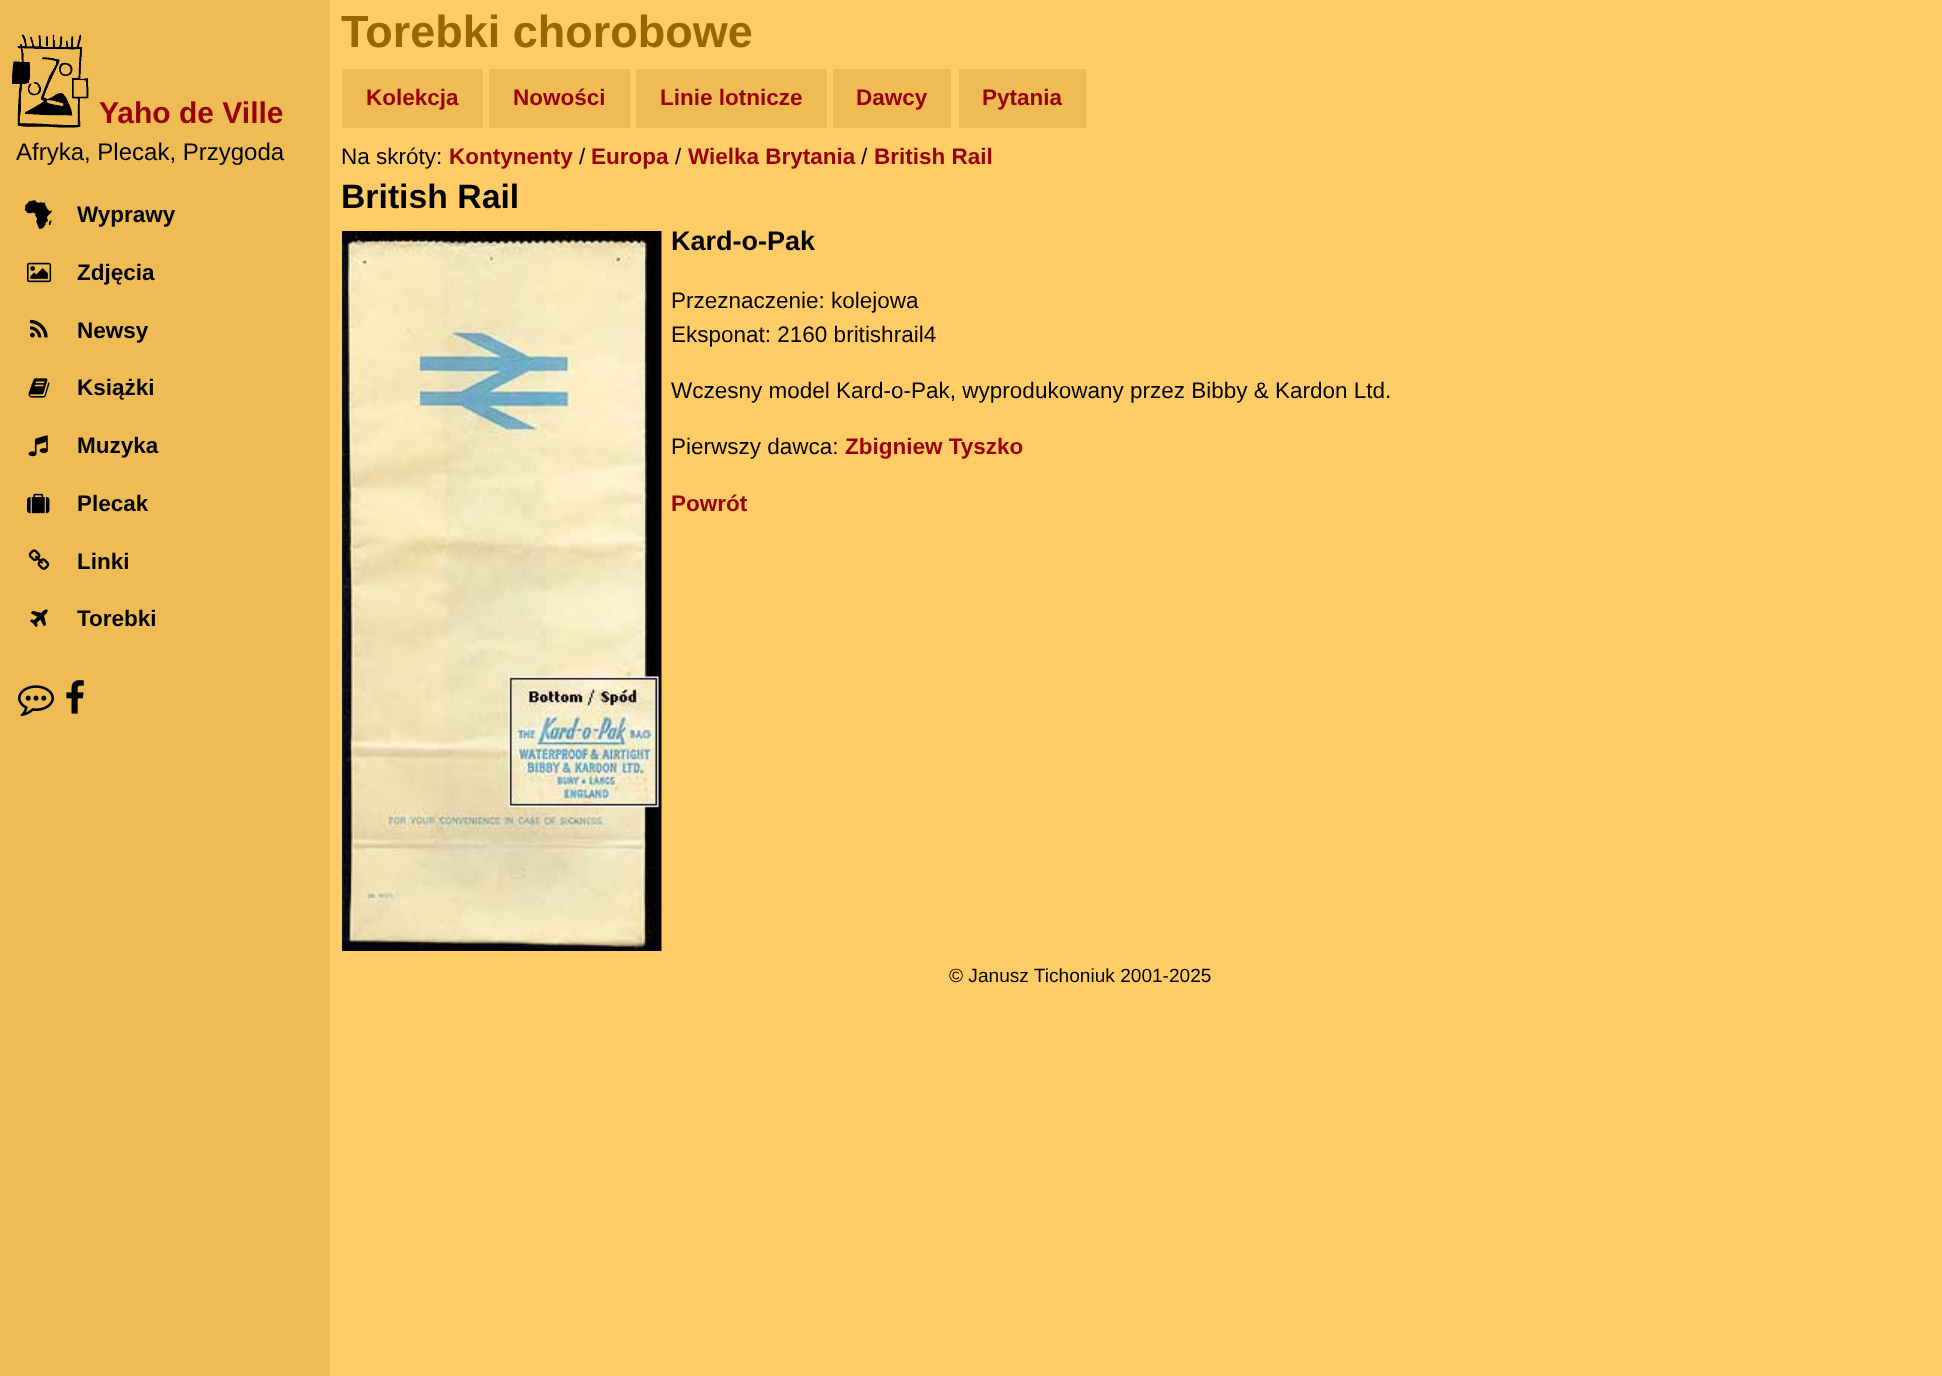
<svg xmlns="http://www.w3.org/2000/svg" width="1942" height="1376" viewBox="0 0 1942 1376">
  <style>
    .t1 { font: bold 30px Liberation Sans; fill: #900; }
    .t2 { font: 24px Liberation Sans; fill: #000; }
    .t3 { font: bold 22.5px Liberation Sans; fill: #000; }
    .t4 { font: bold 45px Liberation Sans; fill: #960; }
    .t5 { font: bold 22.5px Liberation Sans; fill: #900; }
    .t6 { font: 22.5px Liberation Sans; fill: #000; }
    .t7 { font: bold 33.75px Liberation Sans; fill: #000; }
    .t8 { font: bold 27px Liberation Sans; fill: #000; }
    .t9 { font: 19.1px Liberation Sans; fill: #000; }
  </style>
  <rect width="100%" height="100%" fill="#fc6"/>
  <rect x="0" y="0" width="330" height="1376" fill="#eb5"/>
  <image x="12" y="34" width="77" height="94" href="images/1.png"/>
  <text x="99" y="123" class="t1">Yaho de Ville</text>
  <text x="16" y="160" class="t2">Afryka, Plecak, Przygoda</text>
  <image x="24" y="200" width="28" height="29" href="images/2.png"/>
  <text x="77" y="222" class="t3">Wyprawy</text>
  <image x="27" y="262" width="25" height="21" href="images/3.png"/>
  <text x="77" y="280" class="t3">Zdjęcia</text>
  <image x="30" y="319" width="18" height="19" href="images/4.png"/>
  <text x="77" y="338" class="t3">Newsy</text>
  <image x="28" y="378" width="22" height="20" href="images/5.png"/>
  <text x="77" y="395" class="t3">Książki</text>
  <image x="28" y="435" width="20" height="22" href="images/6.png"/>
  <text x="77" y="453" class="t3">Muzyka</text>
  <image x="27" y="493" width="23" height="21" href="images/7.png"/>
  <text x="77" y="511" class="t3">Plecak</text>
  <image x="28" y="549" width="22" height="21" href="images/8.png"/>
  <text x="77" y="569" class="t3">Linki</text>
  <image x="30" y="609" width="18" height="18" href="images/9.png"/>
  <text x="77" y="626" class="t3">Torebki</text>
  <image x="18" y="685" width="36" height="32" href="images/10.png"/>
  <image x="66" y="680" width="18" height="34" href="images/11.png"/>
  <text x="341" y="47" class="t4">Torebki chorobowe</text>
  <rect x="342" y="69" width="141" height="59" fill="#eb5"/>
  <text x="366" y="105" class="t5">Kolekcja</text>
  <rect x="489" y="69" width="141" height="59" fill="#eb5"/>
  <text x="513" y="105" class="t5">Nowości</text>
  <rect x="636" y="69" width="191" height="59" fill="#eb5"/>
  <text x="660" y="105" class="t5">Linie lotnicze</text>
  <rect x="833" y="69" width="118" height="59" fill="#eb5"/>
  <text x="856" y="105" class="t5">Dawcy</text>
  <rect x="959" y="69" width="127" height="59" fill="#eb5"/>
  <text x="982" y="105" class="t5">Pytania</text>
  <text x="341" y="164" class="t6">Na skróty:</text>
  <text x="449" y="164" class="t5">Kontynenty</text>
  <text x="579" y="164" class="t6">/</text>
  <text x="591" y="164" class="t5">Europa</text>
  <text x="675" y="164" class="t6">/</text>
  <text x="688" y="164" class="t5">Wielka Brytania</text>
  <text x="861" y="164" class="t6">/</text>
  <text x="874" y="164" class="t5">British Rail</text>
  <text x="341" y="208" class="t7">British Rail</text>
  <image x="342" y="231" width="320" height="720" href="images/12.png"/>
  <text x="671" y="250" class="t8">Kard-o-Pak</text>
  <text x="671" y="308" class="t6">Przeznaczenie: kolejowa</text>
  <text x="671" y="342" class="t6">Eksponat: 2160 britishrail4</text>
  <text x="671" y="398" class="t6">Wczesny model Kard-o-Pak, wyprodukowany przez Bibby &amp; Kardon Ltd.</text>
  <text x="671" y="454" class="t6">Pierwszy dawca:</text>
  <text x="845" y="454" class="t5">Zbigniew Tyszko</text>
  <text x="671" y="511" class="t5">Powrót</text>
  <text x="949" y="982" class="t9">© Janusz Tichoniuk 2001-2025</text>
</svg>
